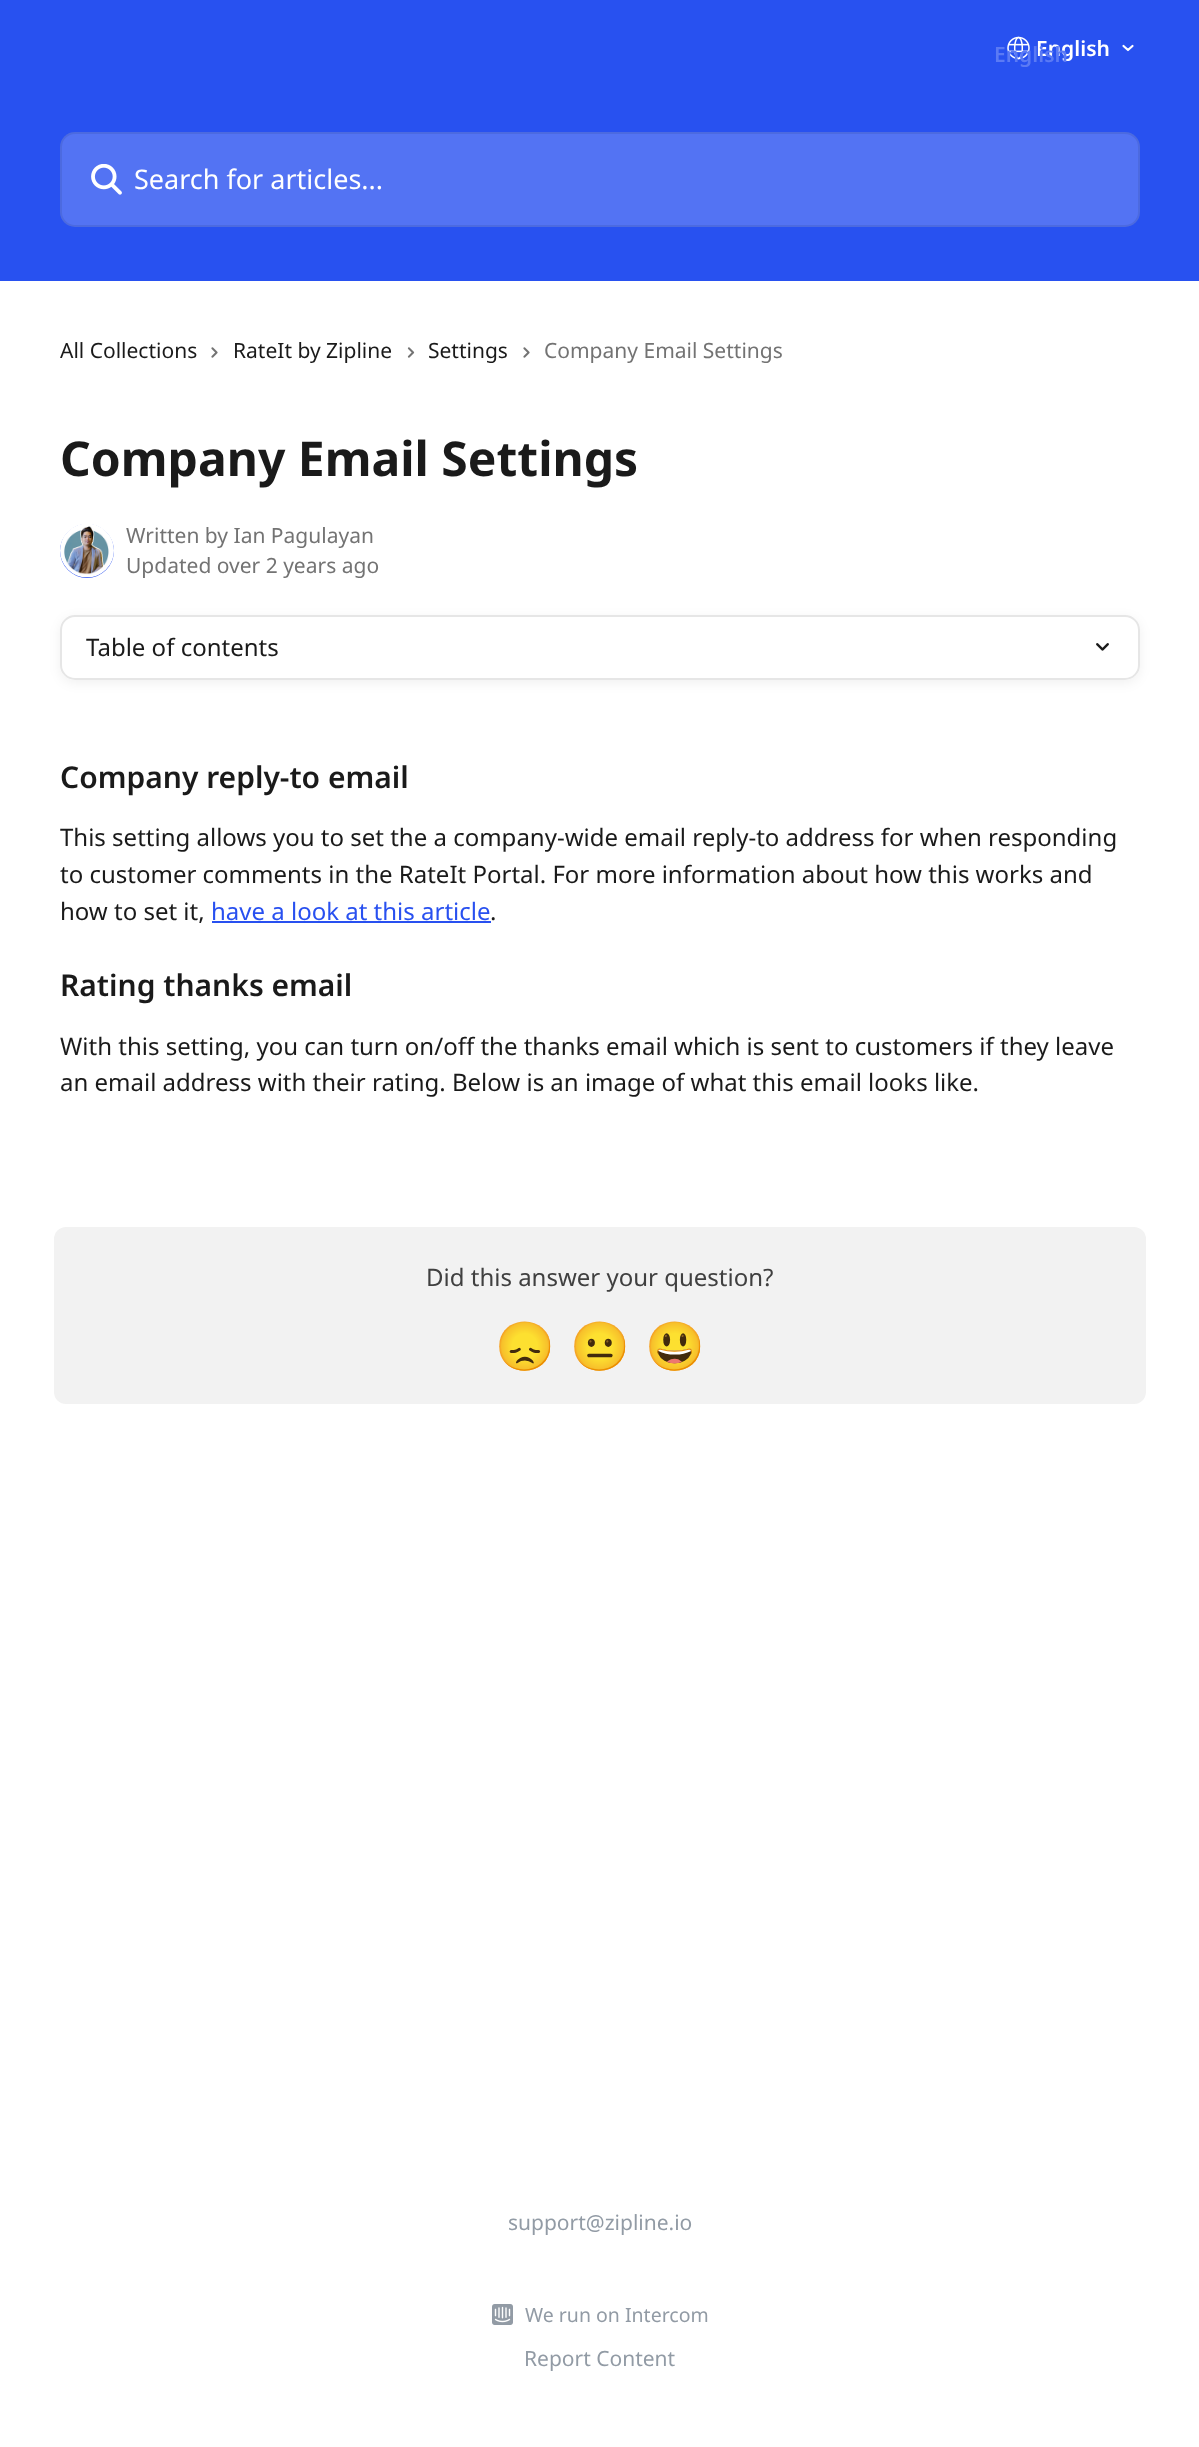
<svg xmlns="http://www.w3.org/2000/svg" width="1199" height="2447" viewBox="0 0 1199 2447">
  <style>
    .t1 { font: 600 21px Noto Sans; fill: #fff; }
    .t2 { font: 600 21px Noto Sans; fill: #5b7af4; }
    .t3 { font: 27px Noto Sans; fill: #fff; }
    .t4 { font: 21px Noto Sans; fill: #1a1a1a; }
    .t5 { font: 21px Noto Sans; fill: #737373; }
    .t6 { font: bold 48px Noto Sans; fill: #1a1a1a; }
    .t7 { font: 24px Noto Sans; fill: #1a1a1a; }
    .t8 { font: 600 30px Noto Sans; fill: #1a1a1a; }
    .t9 { font: 24px Noto Sans; fill: #2850f0; }
    .t10 { font: 24px Noto Sans; fill: #404040; }
    .t11 { font: 48px Noto Color Emoji; fill: #404040; }
    .t12 { font: 21px Noto Sans; fill: #929ba5; }
    .t13 { font: 19.5px Noto Sans; fill: #929ba5; }
  </style>
  <defs>
    <clipPath id="clip1"><path d="M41 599H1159V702H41ZM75 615H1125C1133.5 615 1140 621.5 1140 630V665C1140 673.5 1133.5 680 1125 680H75C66.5 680 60 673.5 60 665V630C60 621.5 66.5 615 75 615Z" clip-rule="evenodd"/></clipPath>
  </defs>
  <rect width="100%" height="100%" fill="#fff"/>
  <rect x="0" y="0" width="1199" height="281" fill="#2851f0"/>
  <image x="1007" y="36" width="23" height="24" href="images/1.png"/>
  <text x="1036" y="56" class="t1">English</text>
  <text x="994" y="62" class="t2">English</text>
  <path d="M1123.5 46L1128 50L1132.5 46" fill="none" stroke="#fff" stroke-width="2.2" stroke-linecap="round" stroke-linejoin="round"/>
  <rect x="60" y="132" width="1080" height="95" rx="15" fill="#ffffff33"/>
  <rect x="61" y="133" width="1078" height="93" rx="14" fill="none" stroke="#00000014" stroke-width="2"/>
  <image x="91" y="164" width="31" height="31" href="images/2.png"/>
  <text x="134" y="189" class="t3">Search for articles...</text>
  <text x="60" y="358" class="t4">All Collections</text>
  <image x="211" y="347" width="7" height="11" href="images/3.png"/>
  <text x="233" y="358" class="t4">RateIt by Zipline</text>
  <image x="407" y="347" width="8" height="11" href="images/4.png"/>
  <text x="428" y="358" class="t4">Settings</text>
  <image x="523" y="347" width="7" height="11" href="images/3.png"/>
  <text x="544" y="358" class="t5">Company Email Settings</text>
  <text x="60" y="476" class="t6">Company Email Settings</text>
  <circle cx="87" cy="551" r="27" fill="#2850f0"/>
  <image x="60" y="524" width="54" height="54" href="images/5.png"/>
  <text x="126" y="543" class="t5">Written by Ian Pagulayan</text>
  <text x="126" y="573" class="t5">Updated over 2 years ago</text>
  <g clip-path="url(#clip1)">
    <rect x="60" y="618" width="1080" height="65" rx="15" fill="#0000000f" filter="blur(6px)"/>
  </g>
  <rect x="61" y="616" width="1078" height="63" rx="14" fill="none" stroke="#e6e6e6" stroke-width="2"/>
  <text x="86" y="656" class="t7">Table of contents</text>
  <image x="1096" y="643" width="13" height="8" href="images/6.png"/>
  <text x="60" y="788" class="t8">Company reply-to email</text>
  <text x="60" y="846" class="t7">This setting allows you to set the a company-wide email reply-to address for when responding</text>
  <text x="60" y="883" class="t7">to customer comments in the RateIt Portal. For more information about how this works and</text>
  <text x="60" y="920" class="t7">how to set it,</text>
  <text x="211" y="920" class="t9">have a look at this article</text>
  <rect x="212" y="921" width="279" height="2" fill="#2850f0"/>
  <text x="490" y="920" class="t7">.</text>
  <text x="60" y="996" class="t8">Rating thanks email</text>
  <text x="60" y="1055" class="t7">With this setting, you can turn on/off the thanks email which is sent to customers if they leave</text>
  <text x="60" y="1091" class="t7">an email address with their rating. Below is an image of what this email looks like.</text>
  <rect x="54" y="1227" width="1092" height="177" rx="12" fill="#f2f2f2"/>
  <text x="426" y="1286" class="t10">Did this answer your question?</text>
  <text x="495" y="1363" class="t11">😞</text>
  <text x="570" y="1363" class="t11">😐</text>
  <text x="645" y="1363" class="t11">😃</text>
  <text x="508" y="2230" class="t12">support@zipline.io</text>
  <image x="492" y="2304" width="21" height="21" href="images/7.png"/>
  <text x="525" y="2322" class="t13">We run on Intercom</text>
  <text x="524" y="2366" class="t12">Report Content</text>
</svg>
